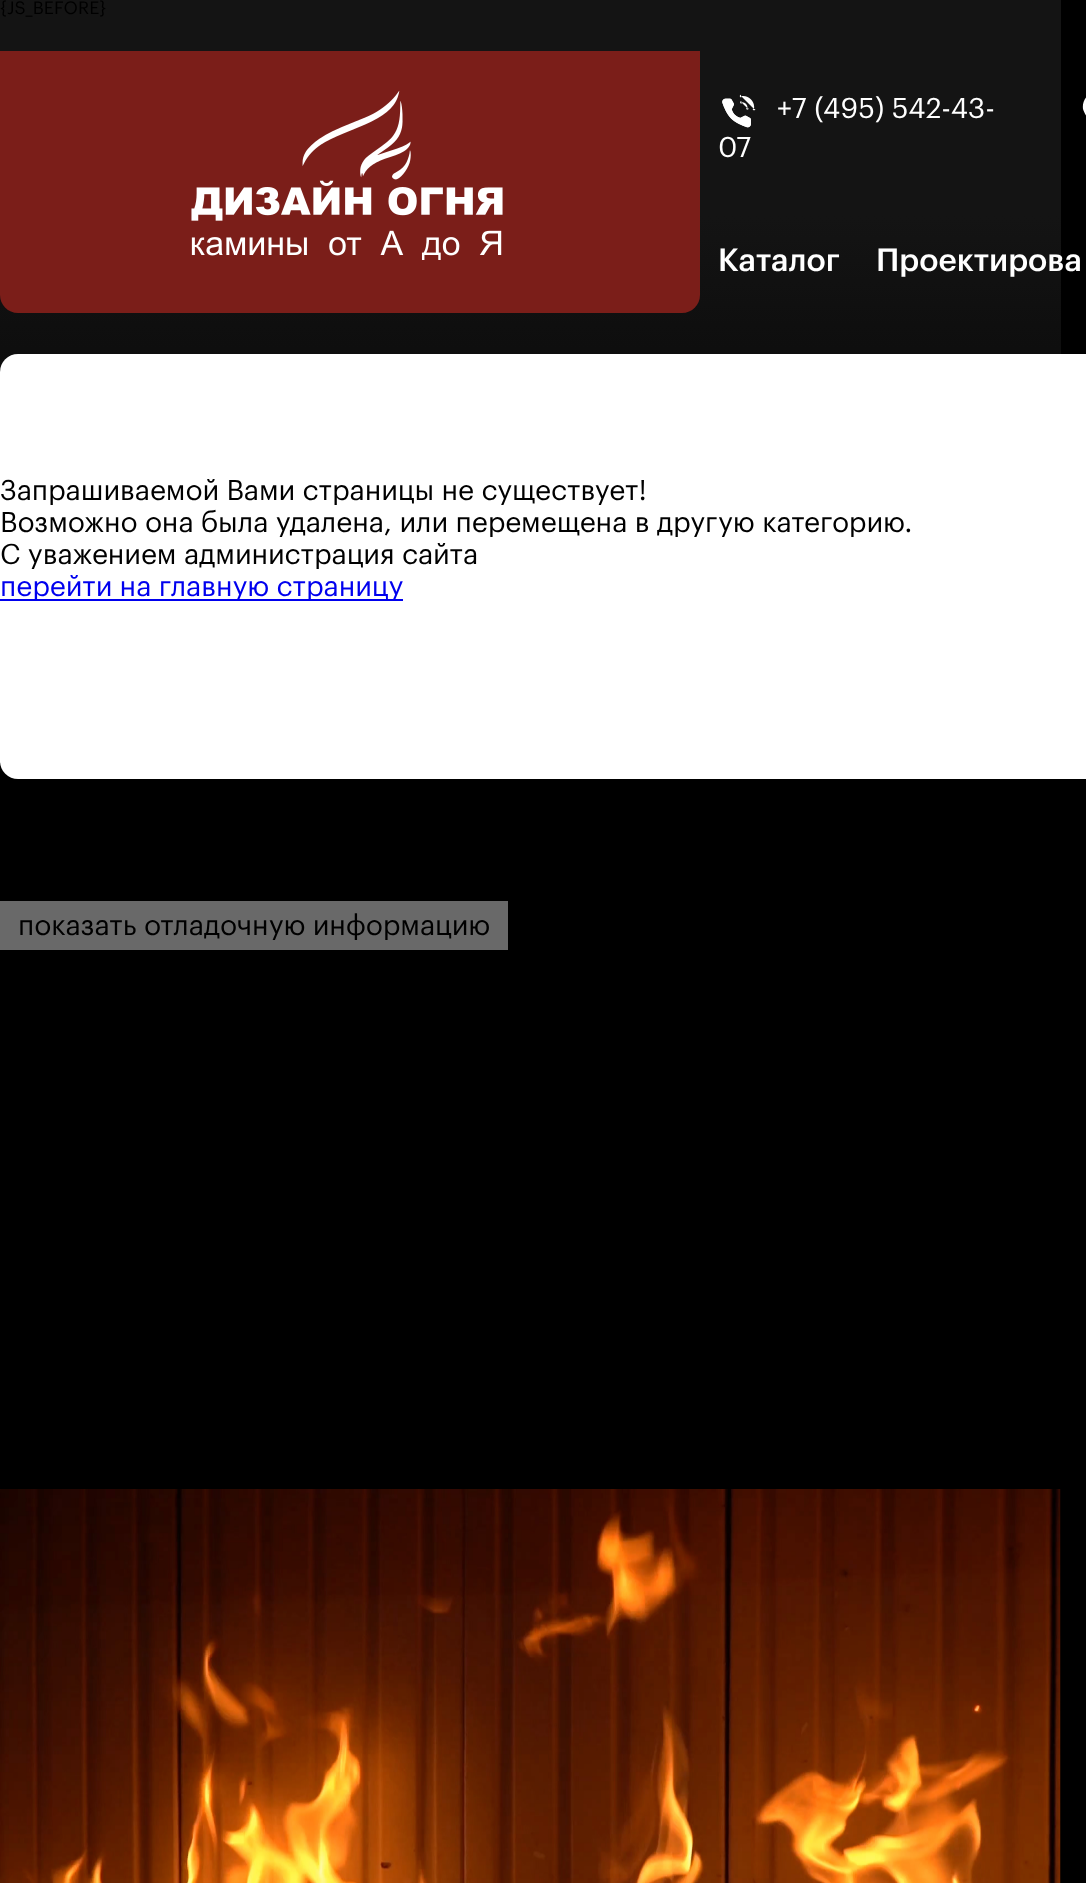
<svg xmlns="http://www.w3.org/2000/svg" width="1086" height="1883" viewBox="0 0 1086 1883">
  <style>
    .t1 { font: 17.5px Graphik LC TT; fill: #000; }
    .t2 { font: 28px Graphik LC TT; fill: #fff; }
    .t3 { font: 500 31.5px Graphik LC TT; fill: #fff; }
    .t4 { font: 28px Graphik LC TT; fill: #000; }
    .t5 { font: 28px Graphik LC TT; fill: #00e; }
  </style>
  <defs>
    <linearGradient id="g1" gradientUnits="userSpaceOnUse" x1="530" y1="0" x2="530" y2="655"><stop offset="0.33" stop-color="#141414"/><stop offset="1" stop-color="#000"/></linearGradient>
  </defs>
  <rect width="100%" height="100%" fill="#000"/>
  <rect x="0" y="0" width="1061" height="372" fill="url(#g1)"/>
  <text x="0" y="14" class="t1">{JS_BEFORE}</text>
  <path d="M0 51H700V295C700 305 692 313 682 313H18C8 313 0 305 0 295Z" fill="#7b1e19"/>
  <image x="191" y="90" width="312" height="170" href="images/1.png"/>
  <image x="722" y="94" width="34" height="34" href="images/2.png"/>
  <text x="777" y="118" class="t2">+7 (495) 542-43-</text>
  <text x="718" y="157" class="t2">07</text>
  <path d="M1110 96C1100 85 1081 94 1083 109C1085 116 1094 127 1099 133L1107 123C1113 114 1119 105 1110 96ZM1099 116C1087 116 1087 97 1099 97C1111 97 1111 116 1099 116Z" fill="#fff"/>
  <text x="718" y="271" class="t3">Каталог</text>
  <text x="876" y="271" class="t3">Проектирова</text>
  <image x="0" y="1489" width="1061" height="394" href="images/3.png"/>
  <rect x="0" y="354" width="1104" height="425" rx="18" fill="#fff"/>
  <text x="0" y="500" class="t4">Запрашиваемой Вами страницы не существует!</text>
  <text x="0" y="532" class="t4">Возможно она была удалена, или перемещена в другую категорию.</text>
  <text x="0" y="564" class="t4">С уважением администрация сайта</text>
  <rect x="0" y="599" width="403" height="2" fill="#00e"/>
  <text x="0" y="596" class="t5">перейти на главную страницу</text>
  <rect x="0" y="901" width="508" height="49" fill="#696969"/>
  <text x="18" y="935" class="t4">показать отладочную информацию</text>
</svg>
